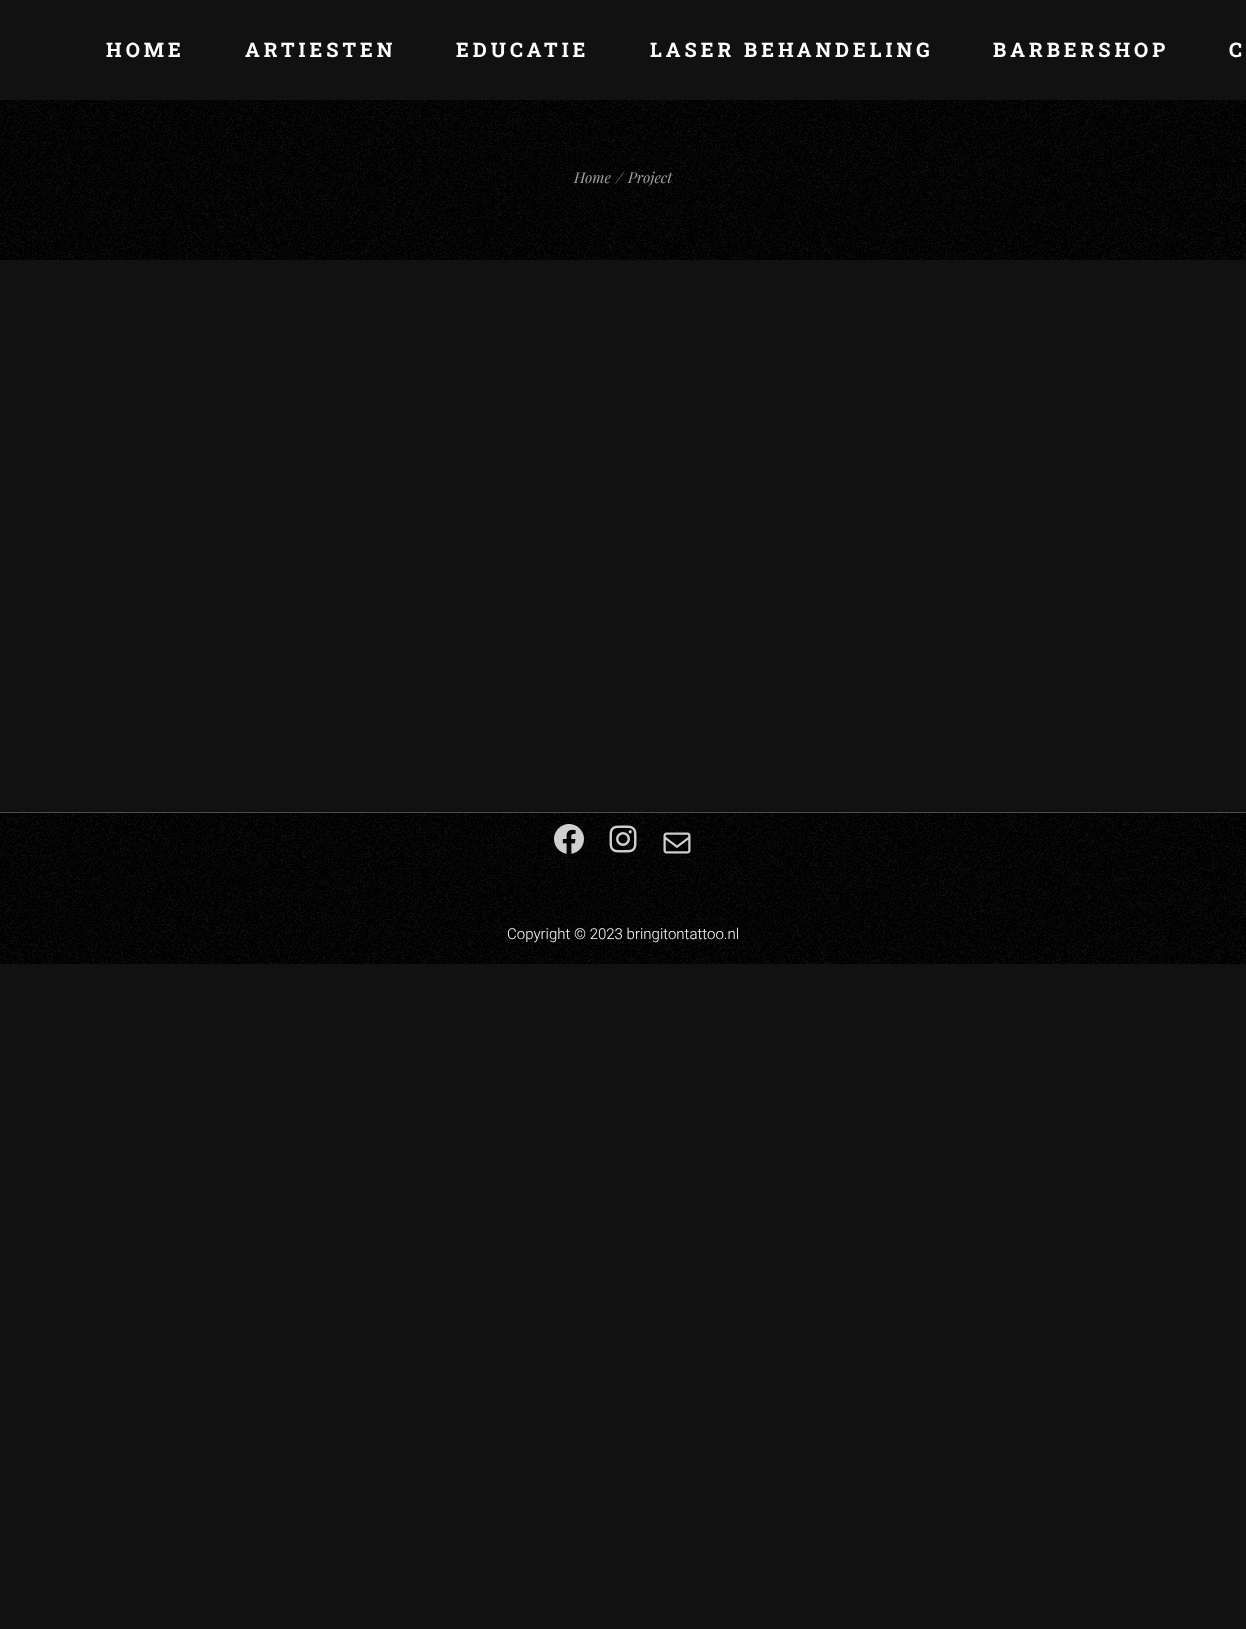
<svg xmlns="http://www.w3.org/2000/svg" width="1246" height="1629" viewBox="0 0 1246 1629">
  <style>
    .t1 { font: bold 20px Roboto Slab; letter-spacing: 4px; fill: #fff; }
    .t2 { font: italic 15px Playfair Display; fill: #a2a2a2; }
    .t3 { font: 300 15px Roboto; fill: #fff; }
  </style>
  <rect width="100%" height="100%" fill="#111"/>
  <text x="106" y="57" class="t1">HOME</text>
  <text x="245" y="57" class="t1">ARTIESTEN</text>
  <text x="456" y="57" class="t1">EDUCATIE</text>
  <text x="650" y="57" class="t1">LASER BEHANDELING</text>
  <text x="993" y="57" class="t1">BARBERSHOP</text>
  <text x="1229" y="57" class="t1">C</text>
  <image x="0" y="100" width="1246" height="160" href="images/1.png"/>
  <text x="574" y="183" class="t2">Home</text>
  <text x="616" y="183" class="t2">/</text>
  <text x="628" y="183" class="t2">Project</text>
  <image x="0" y="813" width="1246" height="151" href="images/2.png"/>
  <rect x="0" y="812" width="1246" height="1" fill="#4d4d4d"/>
  <image x="554" y="824" width="30" height="30" href="images/3.png"/>
  <image x="609" y="825" width="28" height="28" href="images/4.png"/>
  <image x="663" y="832" width="28" height="22" href="images/5.png"/>
  <text x="507" y="939" class="t3">Copyright © 2023 bringitontattoo.nl</text>
</svg>
